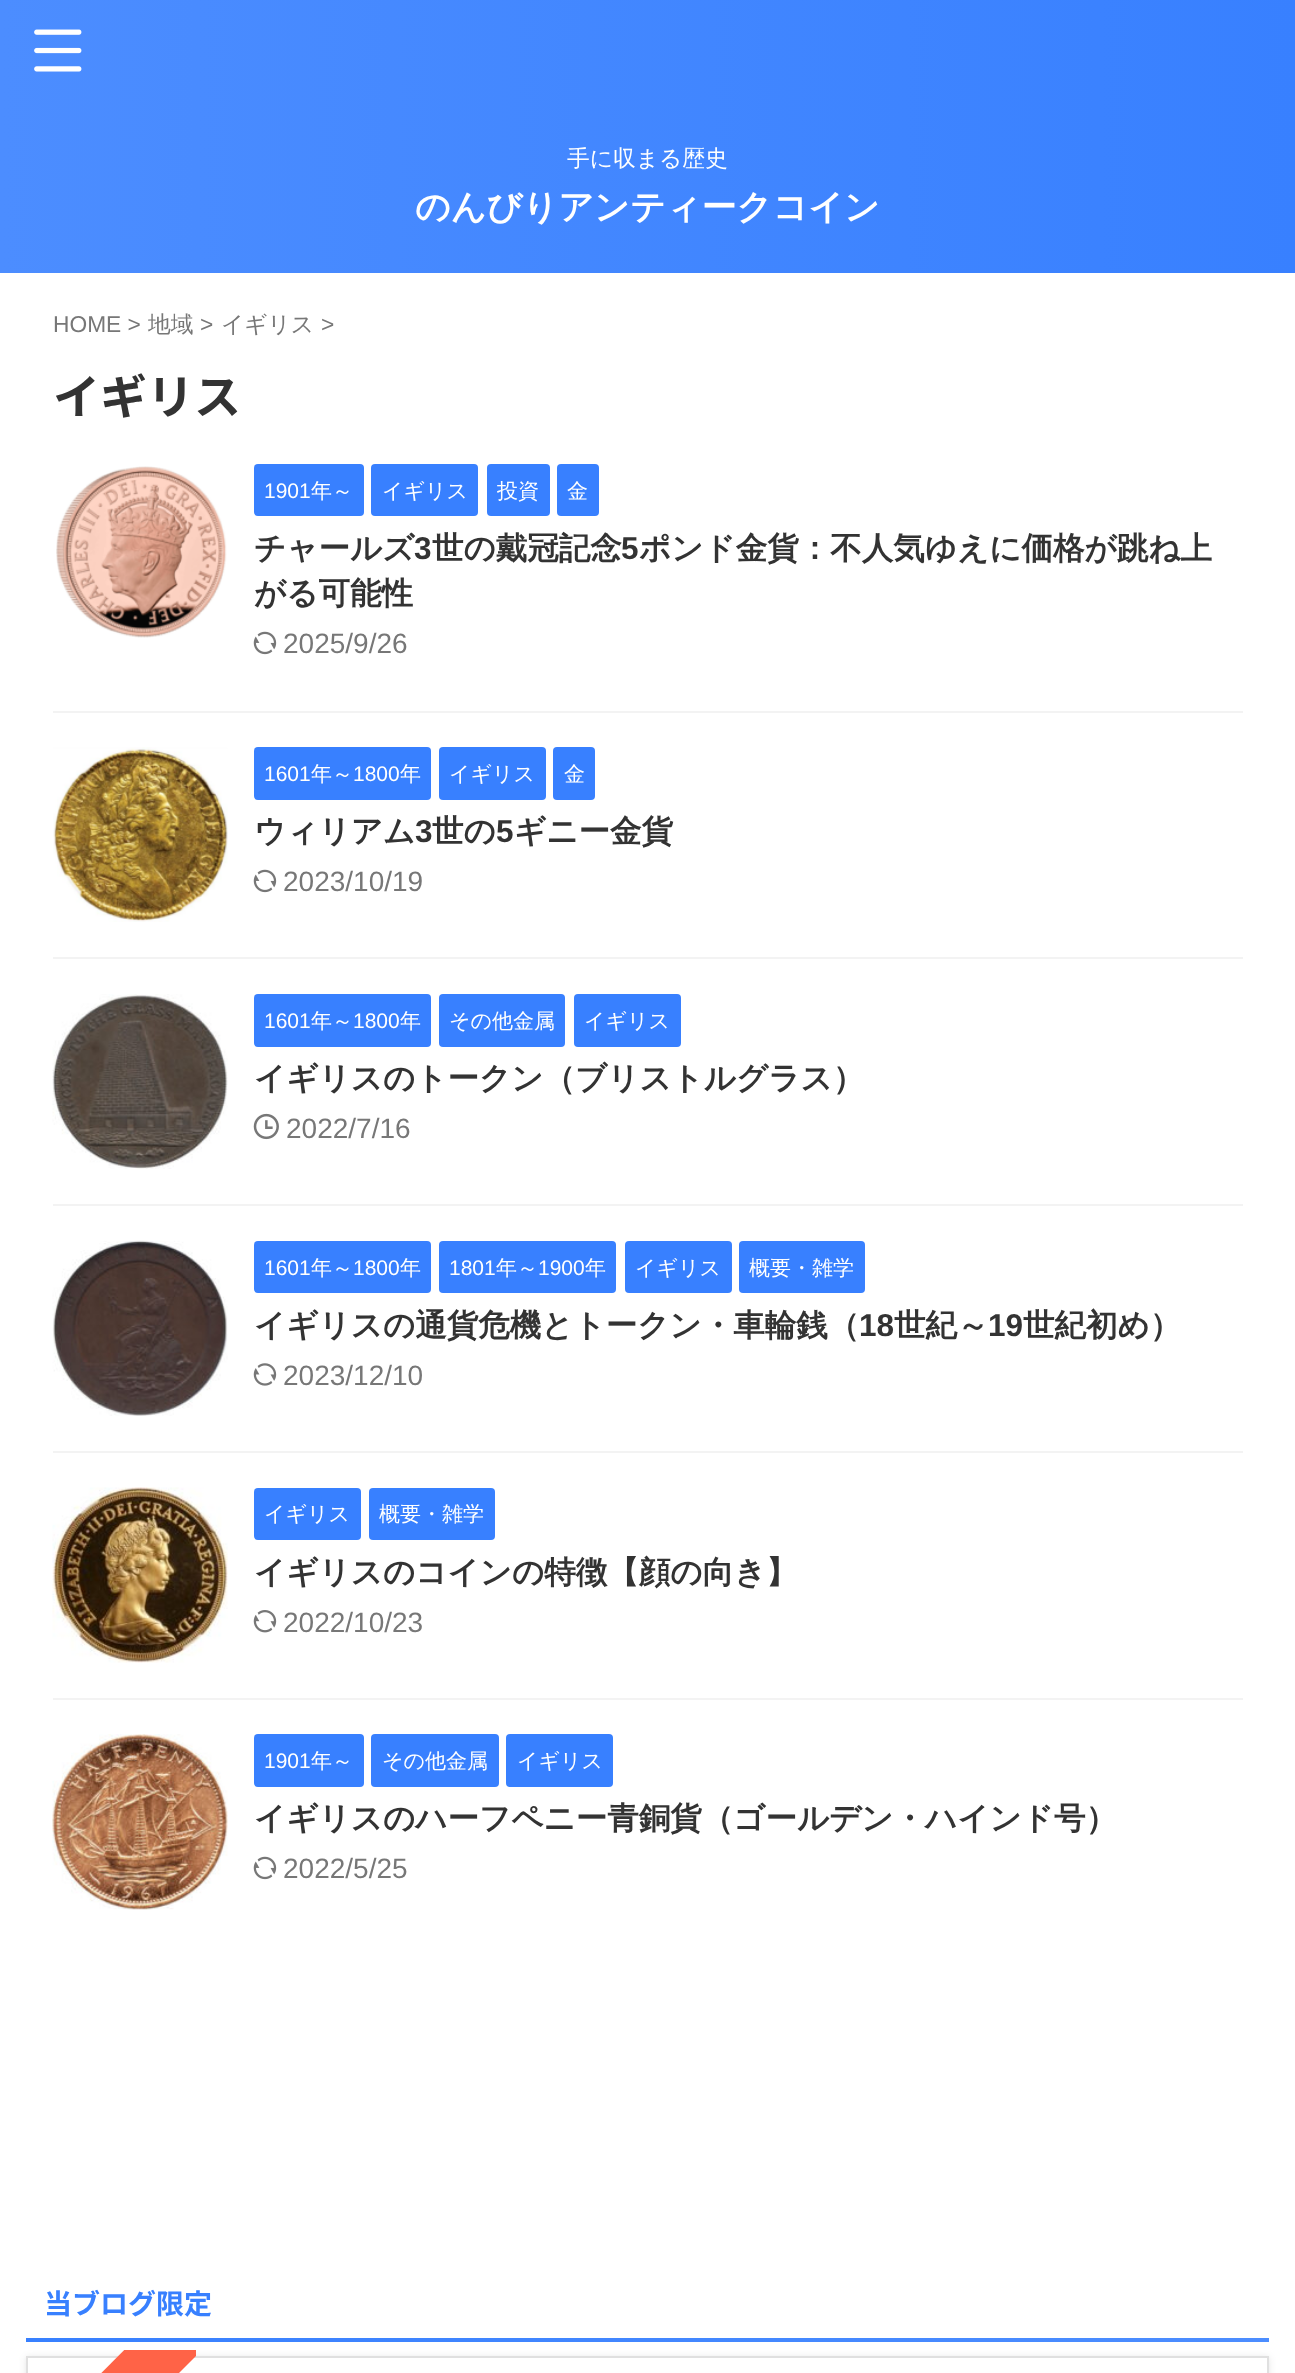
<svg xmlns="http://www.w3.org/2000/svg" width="1295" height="2373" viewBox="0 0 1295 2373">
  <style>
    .t1 { font: 500 22.75px WenQuanYi Zen Hei; fill: #fff; }
    .t2 { font: bold 35px WenQuanYi Zen Hei; fill: #fff; }
    .t3 { font: 22.75px Liberation Sans; fill: #777; }
    .t4 { font: 500 22.75px WenQuanYi Zen Hei; fill: #777; }
    .t5 { font: bold 47px Noto Sans JP; fill: #333; }
    .t6 { font: 21px Liberation Sans; fill: #fff; }
    .t7 { font: 500 21px WenQuanYi Zen Hei; fill: #fff; }
    .t8 { font: bold 31.5px WenQuanYi Zen Hei; fill: #333; }
    .t9 { font: bold 31.5px Liberation Sans; fill: #333; }
    .t10 { font: 28px Liberation Sans; fill: #777; }
    .t11 { font: bold 28px Noto Sans JP; fill: #3880ff; }
  </style>
  <defs>
    <linearGradient id="g1" gradientUnits="userSpaceOnUse" x1="1295" y1="137" x2="0" y2="136"><stop offset="0" stop-color="#3880ff"/><stop offset="1" stop-color="#4c8dff"/></linearGradient>
    <linearGradient id="g2" gradientUnits="userSpaceOnUse" x1="1269" y1="2340" x2="26" y2="2340"><stop offset="0" stop-color="#4c8dff"/><stop offset="1" stop-color="#3880ff"/></linearGradient>
    <clipPath id="clip1"><rect x="21" y="2350" width="175" height="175"/></clipPath>
  </defs>
  <rect width="100%" height="100%" fill="#fff"/>
  <rect x="0" y="0" width="1295" height="273" fill="url(#g1)"/>
  <image x="34" y="29" width="48" height="43" href="images/1.png"/>
  <text x="567" y="166" class="t1">手に収まる歴史</text>
  <text x="415" y="219" class="t2">のんびりアンティークコイン</text>
  <text x="53" y="332" class="t3">HOME &gt;</text>
  <text x="148" y="332" class="t4">地域</text>
  <text x="200" y="332" class="t3">&gt;</text>
  <text x="221" y="332" class="t4">イギリス</text>
  <text x="321" y="332" class="t3">&gt;</text>
  <text x="53" y="414" class="t5">イギリス</text>
  <rect x="53" y="711" width="1190" height="2" fill="#f3f3f3"/>
  <image x="56" y="466" width="171" height="172" href="images/2.png"/>
  <rect x="254" y="464" width="110" height="52" rx="4" fill="#3880ff"/>
  <text x="264" y="498" class="t6">1901</text>
  <text x="311" y="498" class="t7">年～</text>
  <rect x="371" y="464" width="107" height="52" rx="4" fill="#3880ff"/>
  <text x="382" y="498" class="t7">イギリス</text>
  <rect x="487" y="464" width="63" height="52" rx="4" fill="#3880ff"/>
  <text x="497" y="498" class="t7">投資</text>
  <rect x="557" y="464" width="42" height="52" rx="4" fill="#3880ff"/>
  <text x="567" y="498" class="t7">金</text>
  <text x="254" y="559" class="t8">チャールズ</text>
  <text x="414" y="559" class="t9">3</text>
  <text x="432" y="559" class="t8">世の戴冠記念</text>
  <text x="621" y="559" class="t9">5</text>
  <text x="639" y="559" class="t8">ポンド金貨：不人気ゆえに価格が跳ね上</text>
  <text x="254" y="604" class="t8">がる可能性</text>
  <image x="253" y="631" width="24" height="24" href="images/3.png"/>
  <text x="283" y="653" class="t10">2025/9/26</text>
  <rect x="53" y="957" width="1190" height="2" fill="#f3f3f3"/>
  <image x="53" y="747" width="175" height="175" href="images/4.png"/>
  <rect x="254" y="747" width="177" height="53" rx="4" fill="#3880ff"/>
  <text x="264" y="781" class="t6">1601</text>
  <text x="311" y="781" class="t7">年～</text>
  <text x="353" y="781" class="t6">1800</text>
  <text x="400" y="781" class="t7">年</text>
  <rect x="439" y="747" width="107" height="53" rx="4" fill="#3880ff"/>
  <text x="449" y="781" class="t7">イギリス</text>
  <rect x="553" y="747" width="42" height="53" rx="4" fill="#3880ff"/>
  <text x="564" y="781" class="t7">金</text>
  <text x="254" y="842" class="t8">ウィリアム</text>
  <text x="415" y="842" class="t9">3</text>
  <text x="432" y="842" class="t8">世の</text>
  <text x="496" y="842" class="t9">5</text>
  <text x="514" y="842" class="t8">ギニー金貨</text>
  <image x="253" y="869" width="24" height="24" href="images/3.png"/>
  <text x="283" y="891" class="t10">2023/10/19</text>
  <rect x="53" y="1204" width="1190" height="2" fill="#f3f3f3"/>
  <image x="52" y="994" width="176" height="175" href="images/5.png"/>
  <rect x="254" y="994" width="177" height="53" rx="4" fill="#3880ff"/>
  <text x="264" y="1028" class="t6">1601</text>
  <text x="311" y="1028" class="t7">年～</text>
  <text x="353" y="1028" class="t6">1800</text>
  <text x="400" y="1028" class="t7">年</text>
  <rect x="439" y="994" width="126" height="53" rx="4" fill="#3880ff"/>
  <text x="449" y="1028" class="t7">その他金属</text>
  <rect x="574" y="994" width="107" height="53" rx="4" fill="#3880ff"/>
  <text x="584" y="1028" class="t7">イギリス</text>
  <text x="254" y="1089" class="t8">イギリスのトークン（ブリストルグラス）</text>
  <image x="253" y="1113" width="26" height="27" href="images/6.png"/>
  <text x="286" y="1138" class="t10">2022/7/16</text>
  <rect x="53" y="1451" width="1190" height="2" fill="#f3f3f3"/>
  <image x="52" y="1240" width="176" height="176" href="images/7.png"/>
  <rect x="254" y="1241" width="177" height="52" rx="4" fill="#3880ff"/>
  <text x="264" y="1275" class="t6">1601</text>
  <text x="311" y="1275" class="t7">年～</text>
  <text x="353" y="1275" class="t6">1800</text>
  <text x="400" y="1275" class="t7">年</text>
  <rect x="439" y="1241" width="177" height="52" rx="4" fill="#3880ff"/>
  <text x="449" y="1275" class="t6">1801</text>
  <text x="496" y="1275" class="t7">年～</text>
  <text x="538" y="1275" class="t6">1900</text>
  <text x="585" y="1275" class="t7">年</text>
  <rect x="625" y="1241" width="107" height="52" rx="4" fill="#3880ff"/>
  <text x="635" y="1275" class="t7">イギリス</text>
  <rect x="739" y="1241" width="126" height="52" rx="4" fill="#3880ff"/>
  <text x="749" y="1275" class="t7">概要・雑学</text>
  <text x="254" y="1336" class="t8">イギリスの通貨危機とトークン・車輪銭（</text>
  <text x="859" y="1336" class="t9">18</text>
  <text x="894" y="1336" class="t8">世紀～</text>
  <text x="988" y="1336" class="t9">19</text>
  <text x="1023" y="1336" class="t8">世紀初め）</text>
  <image x="253" y="1363" width="24" height="23" href="images/8.png"/>
  <text x="283" y="1385" class="t10">2023/12/10</text>
  <rect x="53" y="1698" width="1190" height="2" fill="#f3f3f3"/>
  <image x="52" y="1487" width="176" height="176" href="images/9.png"/>
  <rect x="254" y="1488" width="107" height="52" rx="4" fill="#3880ff"/>
  <text x="264" y="1521" class="t7">イギリス</text>
  <rect x="369" y="1488" width="126" height="52" rx="4" fill="#3880ff"/>
  <text x="379" y="1521" class="t7">概要・雑学</text>
  <text x="254" y="1583" class="t8">イギリスのコインの特徴【顔の向き】</text>
  <image x="253" y="1610" width="24" height="23" href="images/10.png"/>
  <text x="283" y="1632" class="t10">2022/10/23</text>
  <image x="52" y="1734" width="176" height="176" href="images/11.png"/>
  <rect x="254" y="1734" width="110" height="53" rx="4" fill="#3880ff"/>
  <text x="264" y="1768" class="t6">1901</text>
  <text x="311" y="1768" class="t7">年～</text>
  <rect x="371" y="1734" width="128" height="53" rx="4" fill="#3880ff"/>
  <text x="382" y="1768" class="t7">その他金属</text>
  <rect x="506" y="1734" width="107" height="53" rx="4" fill="#3880ff"/>
  <text x="517" y="1768" class="t7">イギリス</text>
  <text x="254" y="1829" class="t8">イギリスのハーフペニー青銅貨（ゴールデン・ハインド号）</text>
  <image x="253" y="1856" width="24" height="24" href="images/3.png"/>
  <text x="283" y="1878" class="t10">2022/5/25</text>
  <text x="44" y="2314" class="t11">当ブログ限定</text>
  <rect x="26" y="2338" width="1243" height="4" fill="url(#g2)"/>
  <rect x="26" y="2357" width="1243" height="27" fill="#0000001a" filter="blur(3.5px)"/>
  <rect x="27" y="2357" width="1241" height="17" fill="#fff" stroke="#e0e0e0" stroke-width="2"/>
  <g clip-path="url(#clip1)">
    <path d="M-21 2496L164 2310L203 2349L18 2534Z" fill="#ff6347"/>
  </g>
</svg>
